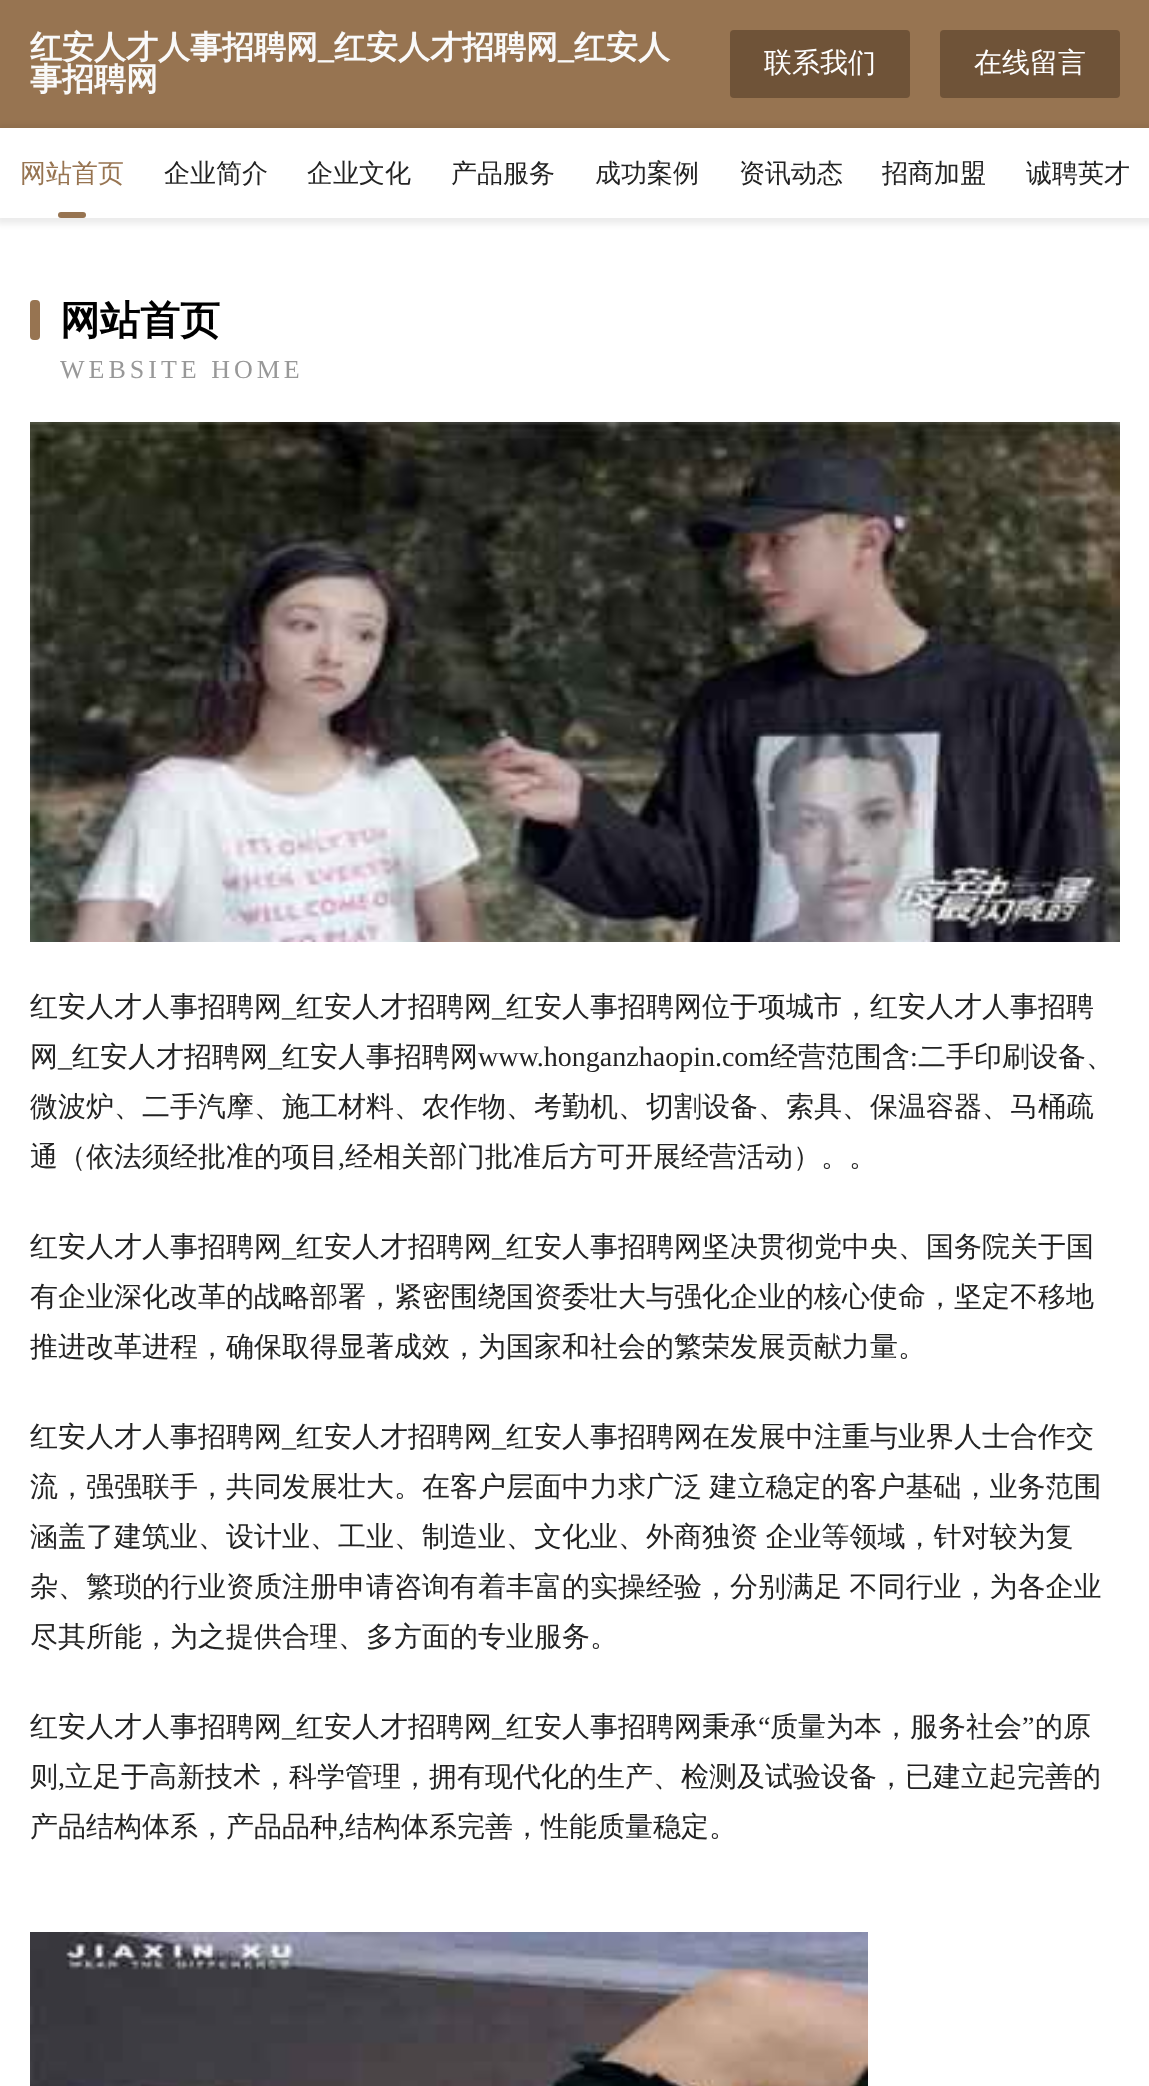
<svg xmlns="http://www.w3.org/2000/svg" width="1149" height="2086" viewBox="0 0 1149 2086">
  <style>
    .t1 { font: bold 32px WenQuanYi Zen Hei; fill: #f9f9f9; }
    .t2 { font: bold 32px Liberation Serif; fill: #f9f9f9; }
    .t3 { font: 500 28px WenQuanYi Zen Hei; fill: #fff; }
    .t4 { font: 500 26px WenQuanYi Zen Hei; fill: #977451; }
    .t5 { font: 500 26px WenQuanYi Zen Hei; fill: #232323; }
    .t6 { font: bold 40px WenQuanYi Zen Hei; fill: #000; }
    .t7 { font: 26px Liberation Serif; letter-spacing: 4px; fill: #989898; }
    .t8 { font: 500 28px WenQuanYi Zen Hei; fill: #232323; }
    .t9 { font: 28px Liberation Serif; fill: #232323; }
  </style>
  <rect width="100%" height="100%" fill="#fff"/>
  <rect x="0" y="0" width="1149" height="128" fill="#977451"/>
  <text x="30" y="58" class="t1">红安人才人事招聘网</text>
  <text x="318" y="58" class="t2">_</text>
  <text x="334" y="58" class="t1">红安人才招聘网</text>
  <text x="558" y="58" class="t2">_</text>
  <text x="574" y="58" class="t1">红安人</text>
  <text x="30" y="90" class="t1">事招聘网</text>
  <rect x="730" y="30" width="180" height="68" rx="4" fill="#6f5338"/>
  <text x="764" y="72" class="t3">联系我们</text>
  <rect x="940" y="30" width="180" height="68" rx="4" fill="#6f5338"/>
  <text x="974" y="72" class="t3">在线留言</text>
  <rect x="-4" y="126" width="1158" height="98" fill="#00000014" filter="blur(3px)"/>
  <rect x="0" y="128" width="1149" height="90" fill="#fff"/>
  <text x="20" y="182" class="t4">网站首页</text>
  <rect x="58" y="212" width="28" height="6" rx="3" fill="#977451"/>
  <text x="164" y="182" class="t5">企业简介</text>
  <text x="307" y="182" class="t5">企业文化</text>
  <text x="451" y="182" class="t5">产品服务</text>
  <text x="595" y="182" class="t5">成功案例</text>
  <text x="739" y="182" class="t5">资讯动态</text>
  <text x="882" y="182" class="t5">招商加盟</text>
  <text x="1026" y="182" class="t5">诚聘英才</text>
  <rect x="30" y="300" width="10" height="40" rx="4" fill="#977451"/>
  <text x="60" y="334" class="t6">网站首页</text>
  <text x="60" y="378" class="t7">WEBSITE HOME</text>
  <image x="30" y="422" width="1090" height="520" href="images/1.png"/>
  <text x="30" y="1016" class="t8">红安人才人事招聘网</text>
  <text x="282" y="1016" class="t9">_</text>
  <text x="296" y="1016" class="t8">红安人才招聘网</text>
  <text x="492" y="1016" class="t9">_</text>
  <text x="506" y="1016" class="t8">红安人事招聘网位于项城市，红安人才人事招聘</text>
  <text x="30" y="1066" class="t8">网</text>
  <text x="58" y="1066" class="t9">_</text>
  <text x="72" y="1066" class="t8">红安人才招聘网</text>
  <text x="268" y="1066" class="t9">_</text>
  <text x="282" y="1066" class="t8">红安人事招聘网</text>
  <text x="478" y="1066" class="t9">www.honganzhaopin.com</text>
  <text x="770" y="1066" class="t8">经营范围含</text>
  <text x="910" y="1066" class="t9">:</text>
  <text x="918" y="1066" class="t8">二手印刷设备、</text>
  <text x="30" y="1116" class="t8">微波炉、二手汽摩、施工材料、农作物、考勤机、切割设备、索具、保温容器、马桶疏</text>
  <text x="30" y="1166" class="t8">通（依法须经批准的项目</text>
  <text x="338" y="1166" class="t9">,</text>
  <text x="345" y="1166" class="t8">经相关部门批准后方可开展经营活动）。。</text>
  <text x="30" y="1256" class="t8">红安人才人事招聘网</text>
  <text x="282" y="1256" class="t9">_</text>
  <text x="296" y="1256" class="t8">红安人才招聘网</text>
  <text x="492" y="1256" class="t9">_</text>
  <text x="506" y="1256" class="t8">红安人事招聘网坚决贯彻党中央、国务院关于国</text>
  <text x="30" y="1306" class="t8">有企业深化改革的战略部署，紧密围绕国资委壮大与强化企业的核心使命，坚定不移地</text>
  <text x="30" y="1356" class="t8">推进改革进程，确保取得显著成效，为国家和社会的繁荣发展贡献力量。</text>
  <text x="30" y="1446" class="t8">红安人才人事招聘网</text>
  <text x="282" y="1446" class="t9">_</text>
  <text x="296" y="1446" class="t8">红安人才招聘网</text>
  <text x="492" y="1446" class="t9">_</text>
  <text x="506" y="1446" class="t8">红安人事招聘网在发展中注重与业界人士合作交</text>
  <text x="30" y="1496" word-spacing="-1" class="t8">流，强强联手，共同发展壮大。在客户层面中力求广泛 建立稳定的客户基础，业务范围</text>
  <text x="30" y="1546" word-spacing="-1" class="t8">涵盖了建筑业、设计业、工业、制造业、文化业、外商独资 企业等领域，针对较为复</text>
  <text x="30" y="1596" word-spacing="-1" class="t8">杂、繁琐的行业资质注册申请咨询有着丰富的实操经验，分别满足 不同行业，为各企业</text>
  <text x="30" y="1646" class="t8">尽其所能，为之提供合理、多方面的专业服务。</text>
  <text x="30" y="1736" class="t8">红安人才人事招聘网</text>
  <text x="282" y="1736" class="t9">_</text>
  <text x="296" y="1736" class="t8">红安人才招聘网</text>
  <text x="492" y="1736" class="t9">_</text>
  <text x="506" y="1736" class="t8">红安人事招聘网秉承</text>
  <text x="758" y="1736" class="t9">“</text>
  <text x="770" y="1736" class="t8">质量为本，服务社会</text>
  <text x="1022" y="1736" class="t9">”</text>
  <text x="1035" y="1736" class="t8">的原</text>
  <text x="30" y="1786" class="t8">则</text>
  <text x="58" y="1786" class="t9">,</text>
  <text x="65" y="1786" class="t8">立足于高新技术，科学管理，拥有现代化的生产、检测及试验设备，已建立起完善的</text>
  <text x="30" y="1836" class="t8">产品结构体系，产品品种</text>
  <text x="338" y="1836" class="t9">,</text>
  <text x="345" y="1836" class="t8">结构体系完善，性能质量稳定。</text>
  <image x="30" y="1932" width="838" height="154" href="images/2.png"/>
</svg>
